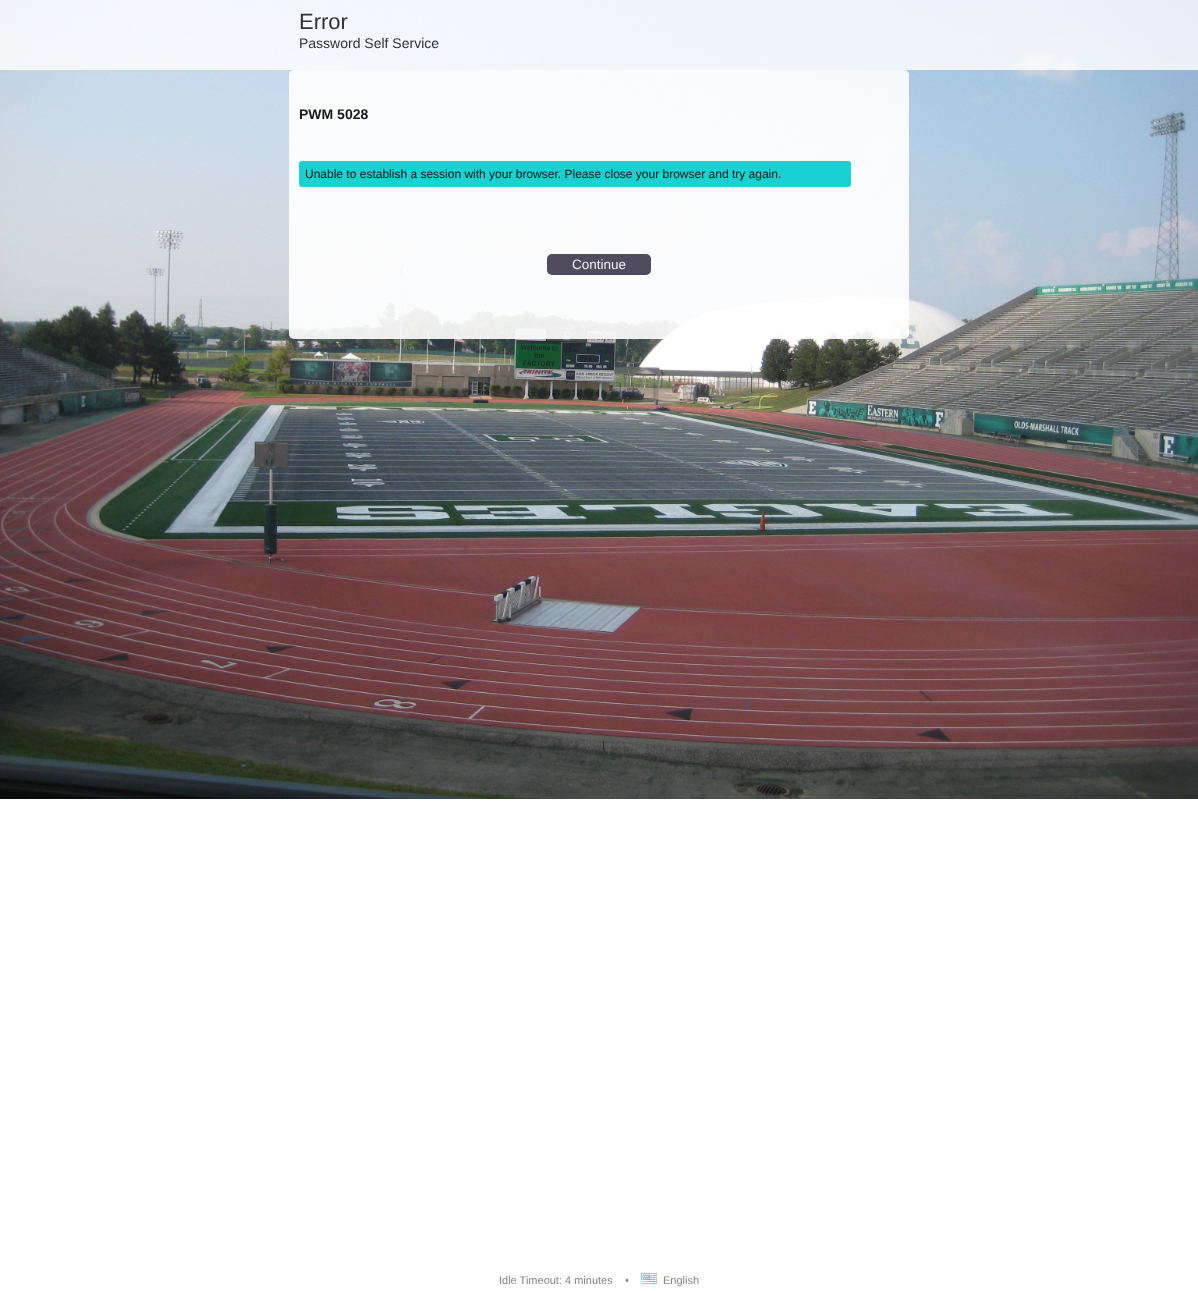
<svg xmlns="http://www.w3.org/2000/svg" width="1198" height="1291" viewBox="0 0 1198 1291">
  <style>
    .t1 { font: 22px Liberation Sans; fill: #303132; }
    .t2 { font: 14px Liberation Sans; fill: #303132; }
    .t3 { font: bold 14px Liberation Sans; fill: #191919; }
    .t4 { font: 12px Liberation Sans; fill: #021515; }
    .t5 { font: 13.5px Liberation Sans; fill: #eeedef; }
    .t6 { font: 11px Liberation Sans; fill: #858585; }
  </style>
  <rect width="100%" height="100%" fill="#fff"/>
  <image x="0" y="0" width="1198" height="799" href="images/1.png"/>
  <rect x="0" y="0" width="1198" height="70" fill="#ffffffcc"/>
  <text x="299" y="29" class="t1">Error</text>
  <text x="299" y="48" class="t2">Password Self Service</text>
  <rect x="289" y="70" width="620" height="269" rx="5" fill="#ffffffe6"/>
  <text x="299" y="119" class="t3">PWM 5028</text>
  <rect x="299" y="161" width="552" height="26" rx="3" fill="#00cccce6"/>
  <text x="305" y="178" class="t4">Unable to establish a session with your browser. Please close your browser and try again.</text>
  <rect x="547" y="254" width="104" height="21" rx="5" fill="#514b5e"/>
  <text x="572" y="269" class="t5">Continue</text>
  <text x="499" y="1284" class="t6">Idle Timeout: 4 minutes</text>
  <text x="625" y="1284" class="t6">•</text>
  <image x="641" y="1273" width="16" height="11" href="images/2.png"/>
  <text x="663" y="1284" class="t6">English</text>
</svg>
